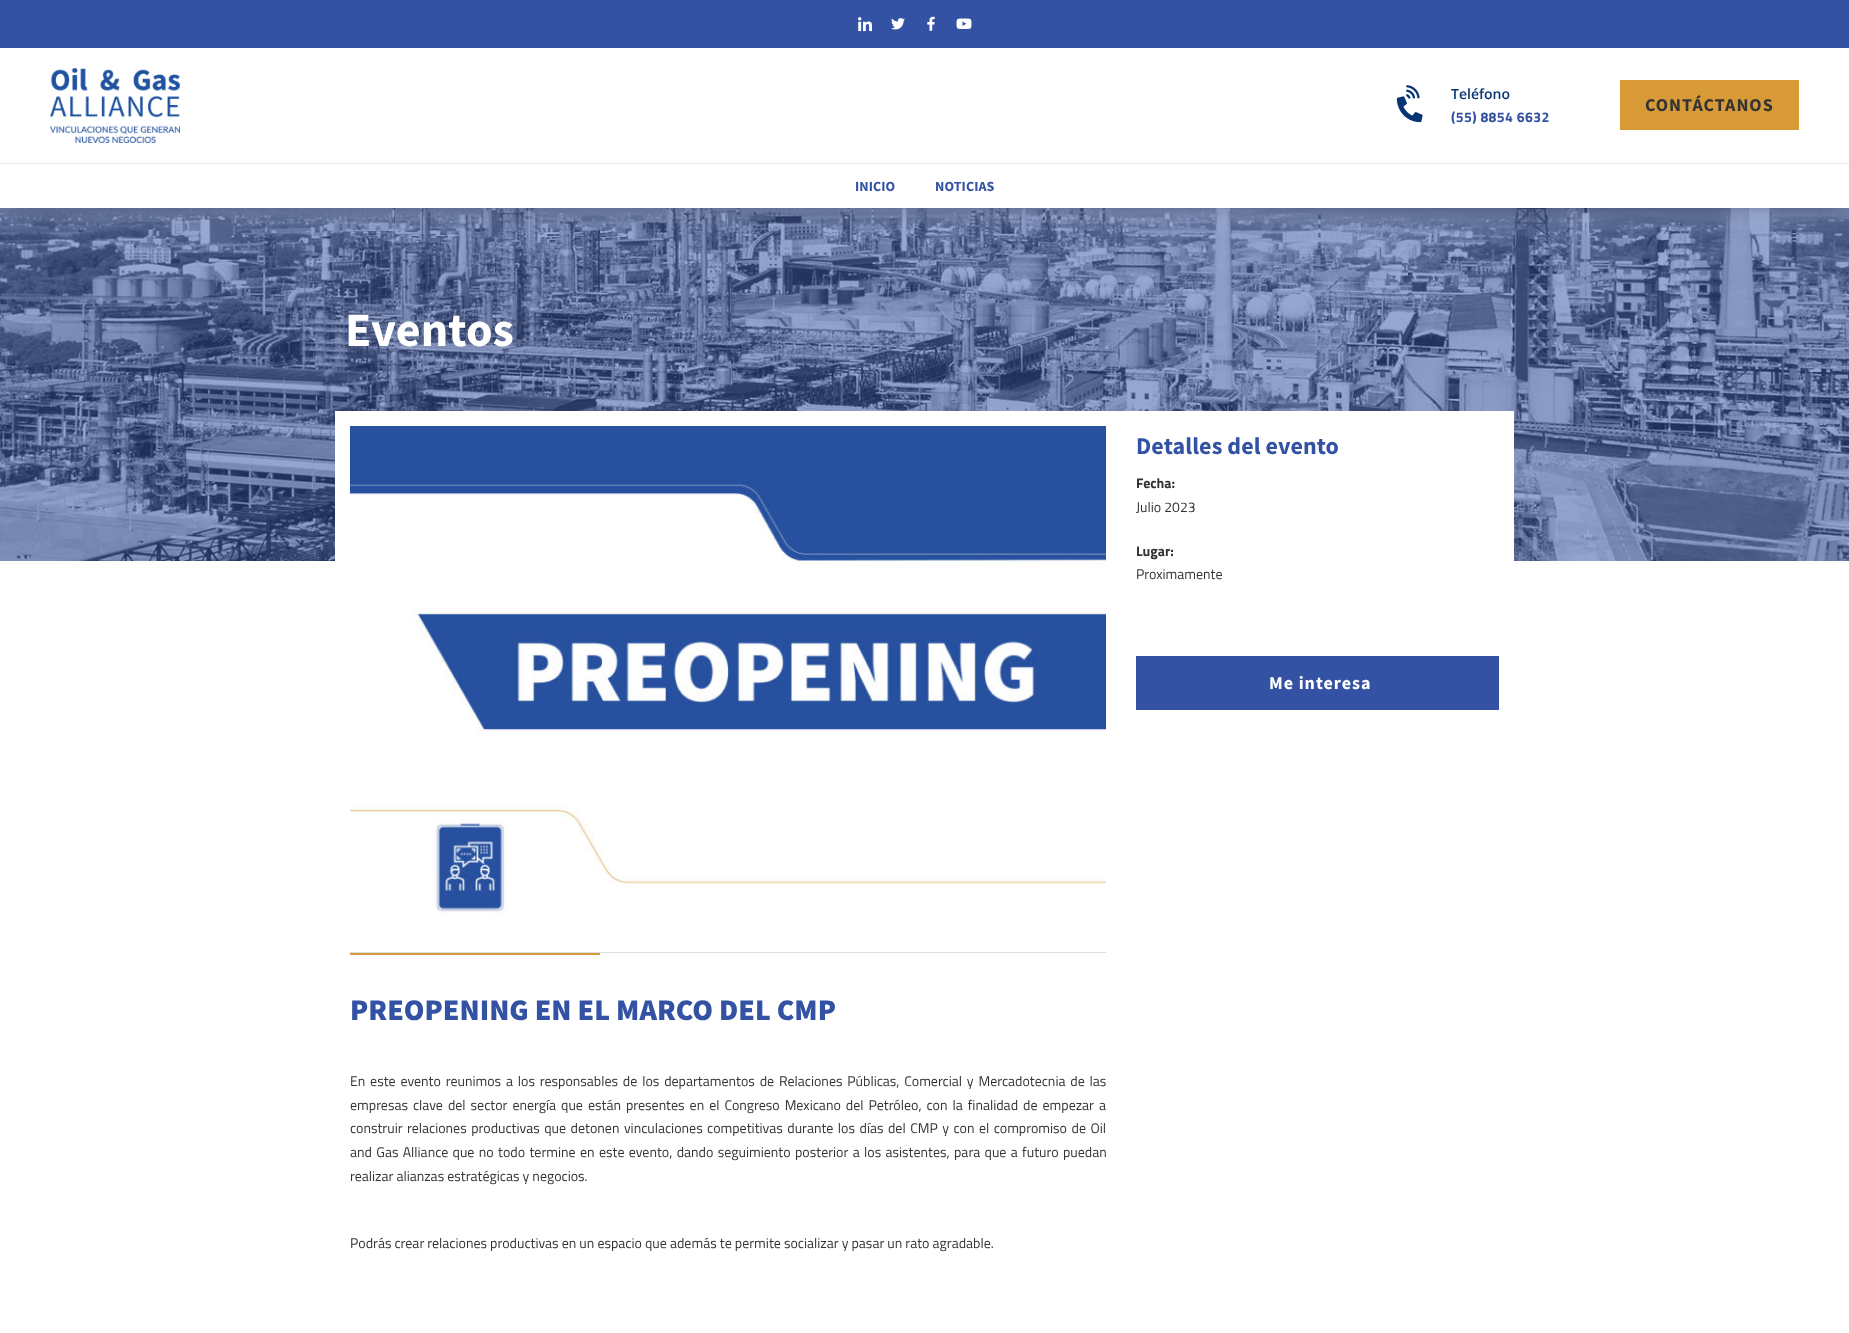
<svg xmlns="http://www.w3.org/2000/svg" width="1849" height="1333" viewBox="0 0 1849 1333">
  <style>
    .t1 { font: 600 14px Open Sans; fill: #073472; }
    .t2 { font: bold 14px Titillium Web; letter-spacing: 0.4px; fill: #3352a3; }
    .t3 { font: bold 18px Source Sans Pro; letter-spacing: 1px; fill: #333; }
    .t4 { font: bold 14px Source Sans Pro; letter-spacing: 0.1px; fill: #3352a3; }
    .t5 { font: bold 48px Source Sans Pro; letter-spacing: 0.1px; fill: #fff; }
    .t6 { font: bold 24px Source Sans Pro; letter-spacing: 0.1px; fill: #3352a3; }
    .t7 { font: bold 14px Titillium Web; fill: #333; }
    .t8 { font: 14px Titillium Web; fill: #333; }
    .t9 { font: bold 18px Source Sans Pro; letter-spacing: 1px; fill: #fff; }
    .t10 { font: 900 30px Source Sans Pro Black; fill: #3352a3; }
  </style>
  <rect width="100%" height="100%" fill="#fff"/>
  <rect x="0" y="0" width="1849" height="48" fill="#3352a3"/>
  <image x="858" y="17" width="14" height="15" href="images/1.png"/>
  <image x="891" y="18" width="14" height="12" href="images/2.png"/>
  <image x="927" y="16" width="8" height="15" href="images/3.png"/>
  <image x="956" y="18" width="16" height="11" href="images/4.png"/>
  <rect x="0" y="163" width="1849" height="1" fill="#eaeaea"/>
  <image x="50" y="68" width="130" height="75" href="images/5.png"/>
  <image x="1396" y="85" width="27" height="38" href="images/6.png"/>
  <text x="1451" y="99" class="t1">Teléfono</text>
  <text x="1451" y="122" class="t2">(55) 8854 6632</text>
  <rect x="1620" y="80" width="179" height="50" fill="#d79a37"/>
  <text x="1645" y="111" class="t3">CONTÁCTANOS</text>
  <image x="0" y="208" width="1849" height="353" href="images/7.png"/>
  <rect x="15" y="189" width="1819" height="14" fill="#00000080" filter="blur(7.5px)"/>
  <rect x="1" y="174" width="1847" height="34" fill="#fff"/>
  <text x="855" y="191" class="t4">INICIO</text>
  <text x="935" y="191" class="t4">NOTICIAS</text>
  <text x="345" y="346" class="t5">Eventos</text>
  <rect x="335" y="411" width="1179" height="150" fill="#fff"/>
  <text x="1136" y="454" class="t6">Detalles del evento</text>
  <text x="1136" y="488" class="t7">Fecha:</text>
  <text x="1136" y="512" class="t8">Julio 2023</text>
  <text x="1136" y="556" class="t7">Lugar:</text>
  <text x="1136" y="579" class="t8">Proximamente</text>
  <rect x="1136" y="656" width="363" height="54" fill="#3352a3"/>
  <text x="1269" y="689" class="t9">Me interesa</text>
  <image x="350" y="426" width="756" height="488" href="images/8.png"/>
  <rect x="350" y="952" width="756" height="1" fill="#dcdde1"/>
  <rect x="350" y="953" width="250" height="2" fill="#d79a37"/>
  <text x="350" y="1020" class="t10">PREOPENING EN EL MARCO DEL CMP</text>
  <text x="350" y="1086" word-spacing="1.75" class="t8">En este evento reunimos a los responsables de los departamentos de Relaciones Públicas, Comercial y Mercadotecnia de las</text>
  <text x="350" y="1110" word-spacing="1.9" class="t8">empresas clave del sector energía que están presentes en el Congreso Mexicano del Petróleo, con la finalidad de empezar a</text>
  <text x="350" y="1133" word-spacing="1.4" class="t8">construir relaciones productivas que detonen vinculaciones competitivas durante los días del CMP y con el compromiso de Oil</text>
  <text x="350" y="1157" word-spacing="1.25" class="t8">and Gas Alliance que no todo termine en este evento, dando seguimiento posterior a los asistentes, para que a futuro puedan</text>
  <text x="350" y="1181" class="t8">realizar alianzas estratégicas y negocios.</text>
  <text x="350" y="1248" class="t8">Podrás crear relaciones productivas en un espacio que además te permite socializar y pasar un rato agradable.</text>
</svg>
